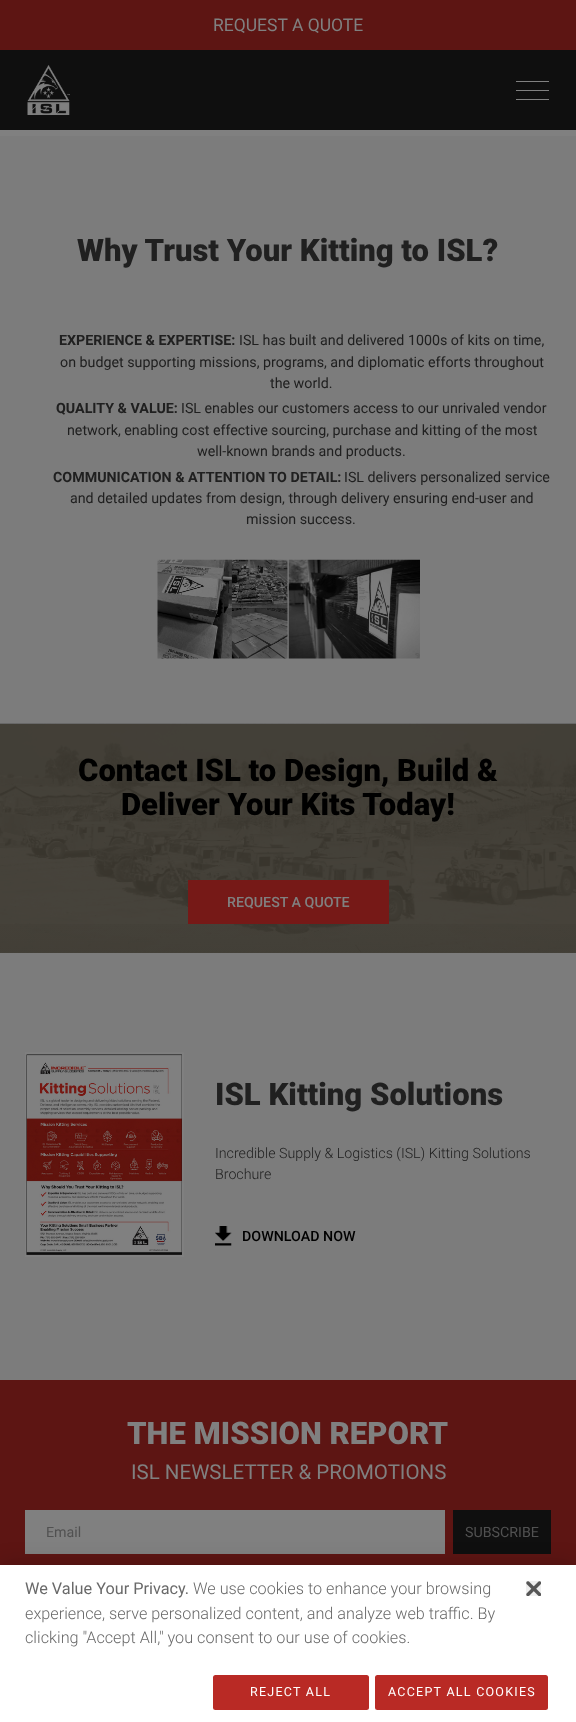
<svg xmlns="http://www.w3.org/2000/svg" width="576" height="1722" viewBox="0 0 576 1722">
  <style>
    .t1 { font: 17.5px Roboto; fill: #808080; }
    .t2 { font: 900 31.1px Roboto; fill: #202020; }
    .t3 { font: bold 14.25px Roboto; fill: #202020; }
    .t4 { font: 14.25px Roboto; fill: #202020; }
    .t5 { font: 900 31.1px Roboto; fill: #000; }
    .t6 { font: 500 14.25px Roboto; fill: #808080; }
    .t7 { font: 300 14.25px Roboto; fill: #202020; }
    .t8 { font: 500 14.25px Roboto; fill: #000; }
    .t9 { font: 900 31.1px Roboto; fill: #808080; }
    .t10 { font: 20.5px Roboto; fill: #808080; }
    .t11 { font: 14.25px Roboto; fill: #515151; }
    .t12 { font: 16.25px Roboto; fill: #696969; }
    .t13 { font: 300 16.25px Roboto; fill: #696969; }
    .t14 { font: 12.5px Roboto; letter-spacing: 1.25px; fill: #fff; }
  </style>
  <defs>
    <linearGradient id="g1" gradientUnits="userSpaceOnUse" x1="288" y1="724" x2="288" y2="953"><stop offset="0.7" stop-color="#39362e" stop-opacity="0"/><stop offset="1" stop-color="#39362e" stop-opacity="0.28"/></linearGradient>
  </defs>
  <rect width="100%" height="100%" fill="#808080"/>
  <rect x="0" y="952" width="576" height="1" fill="#48443c"/>
  <rect x="0" y="0" width="576" height="50" fill="#5d1513"/>
  <text x="213" y="31" class="t1">REQUEST A QUOTE</text>
  <rect x="0" y="50" width="576" height="80" fill="#0f0f0f"/>
  <image x="27" y="65" width="43" height="50" href="images/1.png"/>
  <rect x="516" y="81" width="33" height="1" fill="#808080"/>
  <rect x="516" y="90" width="33" height="1" fill="#808080"/>
  <rect x="516" y="99" width="33" height="1" fill="#808080"/>
  <rect x="0" y="136" width="576" height="588" fill="#7c7c7c"/>
  <text x="77" y="261" class="t2">Why Trust Your Kitting to ISL?</text>
  <text x="59" y="345" class="t3">EXPERIENCE &amp; EXPERTISE:</text>
  <text x="239" y="345" class="t4">ISL has built and delivered 1000s of kits on time,</text>
  <text x="60" y="367" class="t4">on budget supporting missions, programs, and diplomatic efforts throughout</text>
  <text x="270" y="388" class="t4">the world.</text>
  <text x="56" y="413" class="t3">QUALITY &amp; VALUE:</text>
  <text x="181" y="413" class="t4">ISL enables our customers access to our unrivaled vendor</text>
  <text x="67" y="435" class="t4">network, enabling cost effective sourcing, purchase and kitting of the most</text>
  <text x="197" y="456" class="t4">well-known brands and products.</text>
  <text x="53" y="482" class="t3">COMMUNICATION &amp; ATTENTION TO DETAIL:</text>
  <text x="344" y="482" class="t4">ISL delivers personalized service</text>
  <text x="70" y="503" class="t4">and detailed updates from design, through delivery ensuring end-user and</text>
  <text x="246" y="524" class="t4">mission success.</text>
  <image x="157" y="559" width="131" height="100" href="images/2.png"/>
  <image x="288" y="559" width="132" height="100" href="images/3.png"/>
  <image x="0" y="723" width="576" height="230" href="images/4.png"/>
  <text x="78" y="781" class="t5">Contact ISL to Design, Build &amp;</text>
  <text x="121" y="815" class="t5">Deliver Your Kits Today!</text>
  <rect x="188" y="880" width="201" height="44" fill="#761917"/>
  <text x="227" y="907" class="t6">REQUEST A QUOTE</text>
  <rect x="0" y="924" width="576" height="29" fill="url(#g1)"/>
  <rect x="0" y="953" width="576" height="427" fill="#7c7c7c"/>
  <image x="25" y="1052" width="159" height="205" href="images/5.png"/>
  <text x="215" y="1105" class="t2">ISL Kitting Solutions</text>
  <text x="215" y="1158" class="t7">Incredible Supply &amp; Logistics (ISL) Kitting Solutions</text>
  <text x="215" y="1179" class="t7">Brochure</text>
  <image x="215" y="1226" width="17" height="20" href="images/6.png"/>
  <text x="242" y="1241" class="t8">DOWNLOAD NOW</text>
  <rect x="0" y="1380" width="576" height="185" fill="#5d1513"/>
  <text x="127" y="1444" class="t9">THE MISSION REPORT</text>
  <text x="131" y="1479" class="t10">ISL NEWSLETTER &amp; PROMOTIONS</text>
  <rect x="25" y="1510" width="420" height="44" fill="#808080"/>
  <text x="46" y="1537" class="t11">Email</text>
  <rect x="453" y="1510" width="98" height="44" fill="#0f0f0f"/>
  <text x="465" y="1537" class="t11">SUBSCRIBE</text>
  <rect x="0" y="1565" width="576" height="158" fill="#00000033" filter="blur(11px)"/>
  <rect x="0" y="1565" width="576" height="157" fill="#fff"/>
  <text x="25" y="1594" class="t12">We Value Your Privacy.</text>
  <text x="193" y="1594" class="t13">We use cookies to enhance your browsing</text>
  <text x="25" y="1619" class="t13">experience, serve personalized content, and analyze web traffic. By</text>
  <text x="25" y="1643" class="t13">clicking "Accept All," you consent to our use of cookies.</text>
  <rect x="526" y="1581" width="15" height="15" fill="#efefef"/>
  <image x="526" y="1581" width="15" height="15" href="images/7.png"/>
  <rect x="213" y="1675" width="156" height="35" rx="2.5" fill="#b92a25"/>
  <text x="250" y="1696" class="t14">REJECT ALL</text>
  <rect x="375" y="1675" width="173" height="35" rx="2.5" fill="#b92a25"/>
  <text x="388" y="1696" class="t14">ACCEPT ALL COOKIES</text>
</svg>
